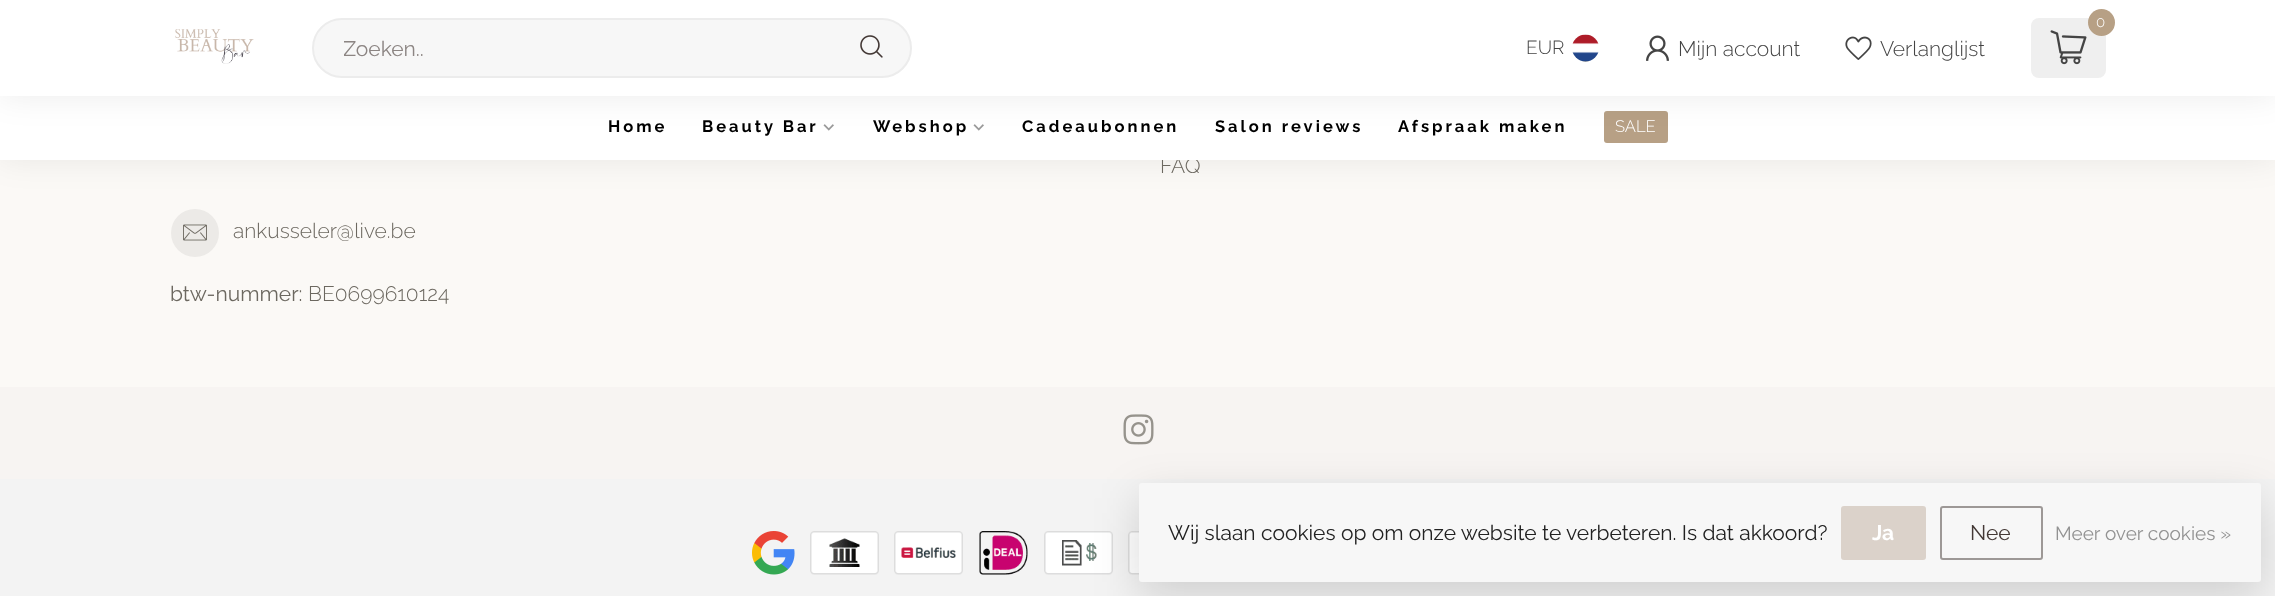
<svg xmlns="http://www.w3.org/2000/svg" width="2275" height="596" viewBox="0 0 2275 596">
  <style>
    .t1 { font: 300 21px Raleway; fill: #6c6860; }
    .t2 { font: 21px Raleway; fill: #8c8583; }
    .t3 { font: 300 15px Raleway; fill: #fff; }
    .t4 { font: 300 19px Raleway; fill: #444; }
    .t5 { font: 300 21px Raleway; fill: #444; }
    .t6 { font: bold 16.5px Raleway; letter-spacing: 3px; fill: #000; }
    .t7 { font: 300 16.5px Raleway; fill: #fff; }
    .t8 { font: 21px Raleway; fill: #6c6860; }
    .t9 { font: 21px Raleway; fill: #222; }
    .t10 { font: bold 21px Raleway; fill: #fff; }
    .t11 { font: 21px Raleway; fill: #443936; }
    .t12 { font: 19px Raleway; fill: #929292; }
  </style>
  <defs>
    <clipPath id="clip1"><rect x="344" y="36" width="549" height="24"/></clipPath>
  </defs>
  <rect width="100%" height="100%" fill="#fbf9f6"/>
  <circle cx="195" cy="233" r="24" fill="#eceae7"/>
  <rect x="0" y="96" width="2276" height="63" fill="#00000014" filter="blur(16.5px)"/>
  <text x="1160" y="173" class="t1">FAQ</text>
  <rect x="0" y="96" width="2275" height="64" fill="#fff"/>
  <image x="823" y="124" width="11" height="7" href="images/7.png"/>
  <image x="973" y="124" width="11" height="7" href="images/7.png"/>
  <rect x="1604" y="111" width="64" height="32" rx="3" fill="#b7a085"/>
  <rect x="0" y="-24" width="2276" height="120" fill="#00000014" filter="blur(16.5px)"/>
  <rect x="0" y="0" width="2275" height="96" fill="#fff"/>
  <image x="175" y="29" width="79" height="35" href="images/1.png"/>
  <rect x="313" y="19" width="598" height="58" rx="29" fill="#f7f7f7" stroke="#ececec" stroke-width="2"/>
  <g clip-path="url(#clip1)">
    <text x="343" y="56" class="t2">Zoeken..</text>
  </g>
  <image x="860" y="35" width="23" height="23" href="images/2.png"/>
  <rect x="2031" y="18" width="75" height="60" rx="8" fill="#efefef"/>
  <circle cx="2101.5" cy="22.5" r="13.5" fill="#b7a085"/>
  <text x="2096" y="27" class="t3">0</text>
  <image x="2050" y="30" width="37" height="35" href="images/3.png"/>
  <text x="1526" y="54" class="t4">EUR</text>
  <image x="1572" y="34" width="27" height="28" href="images/4.png"/>
  <image x="1646" y="35" width="23" height="26" href="images/5.png"/>
  <text x="1678" y="56" class="t5">Mijn account</text>
  <image x="1845" y="36" width="27" height="24" href="images/6.png"/>
  <text x="1880" y="56" class="t5">Verlanglijst</text>
  <text x="608" y="132" class="t6">Home</text>
  <text x="702" y="132" class="t6">Beauty Bar</text>
  <text x="873" y="132" class="t6">Webshop</text>
  <text x="1022" y="132" class="t6">Cadeaubonnen</text>
  <text x="1215" y="132" class="t6">Salon reviews</text>
  <text x="1398" y="132" class="t6">Afspraak maken</text>
  <text x="1615" y="132" class="t7">SALE</text>
  <image x="183" y="224" width="24" height="17" href="images/8.png"/>
  <text x="233" y="238" class="t1">ankusseler@live.be</text>
  <text x="170" y="301" class="t8">btw-nummer:</text>
  <text x="308" y="301" class="t1">BE0699610124</text>
  <rect x="0" y="387" width="2275" height="92" fill="#f7f4f2"/>
  <image x="1123" y="414" width="31" height="31" href="images/9.png"/>
  <rect x="0" y="479" width="2275" height="117" fill="#f3f3f3"/>
  <image x="752" y="531" width="43" height="44" href="images/10.png"/>
  <image x="810" y="531" width="69" height="44" href="images/11.png"/>
  <image x="894" y="531" width="69" height="44" href="images/12.png"/>
  <image x="979" y="531" width="49" height="44" href="images/13.png"/>
  <image x="1044" y="531" width="69" height="44" href="images/14.png"/>
  <image x="1128" y="531" width="11" height="44" href="images/15.png"/>
  <rect x="1139" y="498" width="1122" height="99" rx="3" fill="#00000026" filter="blur(22.5px)"/>
  <rect x="1139" y="483" width="1122" height="99" rx="3" fill="#f7f7f7"/>
  <text x="1168" y="540" class="t9">Wij slaan cookies op om onze website te verbeteren. Is dat akkoord?</text>
  <rect x="1841" y="506" width="85" height="54" rx="3" fill="#dbd2ca"/>
  <text x="1872" y="540" class="t10">Ja</text>
  <rect x="1941" y="507" width="101" height="52" rx="2" fill="none" stroke="#9d9896" stroke-width="2"/>
  <text x="1970" y="540" class="t11">Nee</text>
  <text x="2055" y="540" class="t12">Meer over cookies »</text>
</svg>
